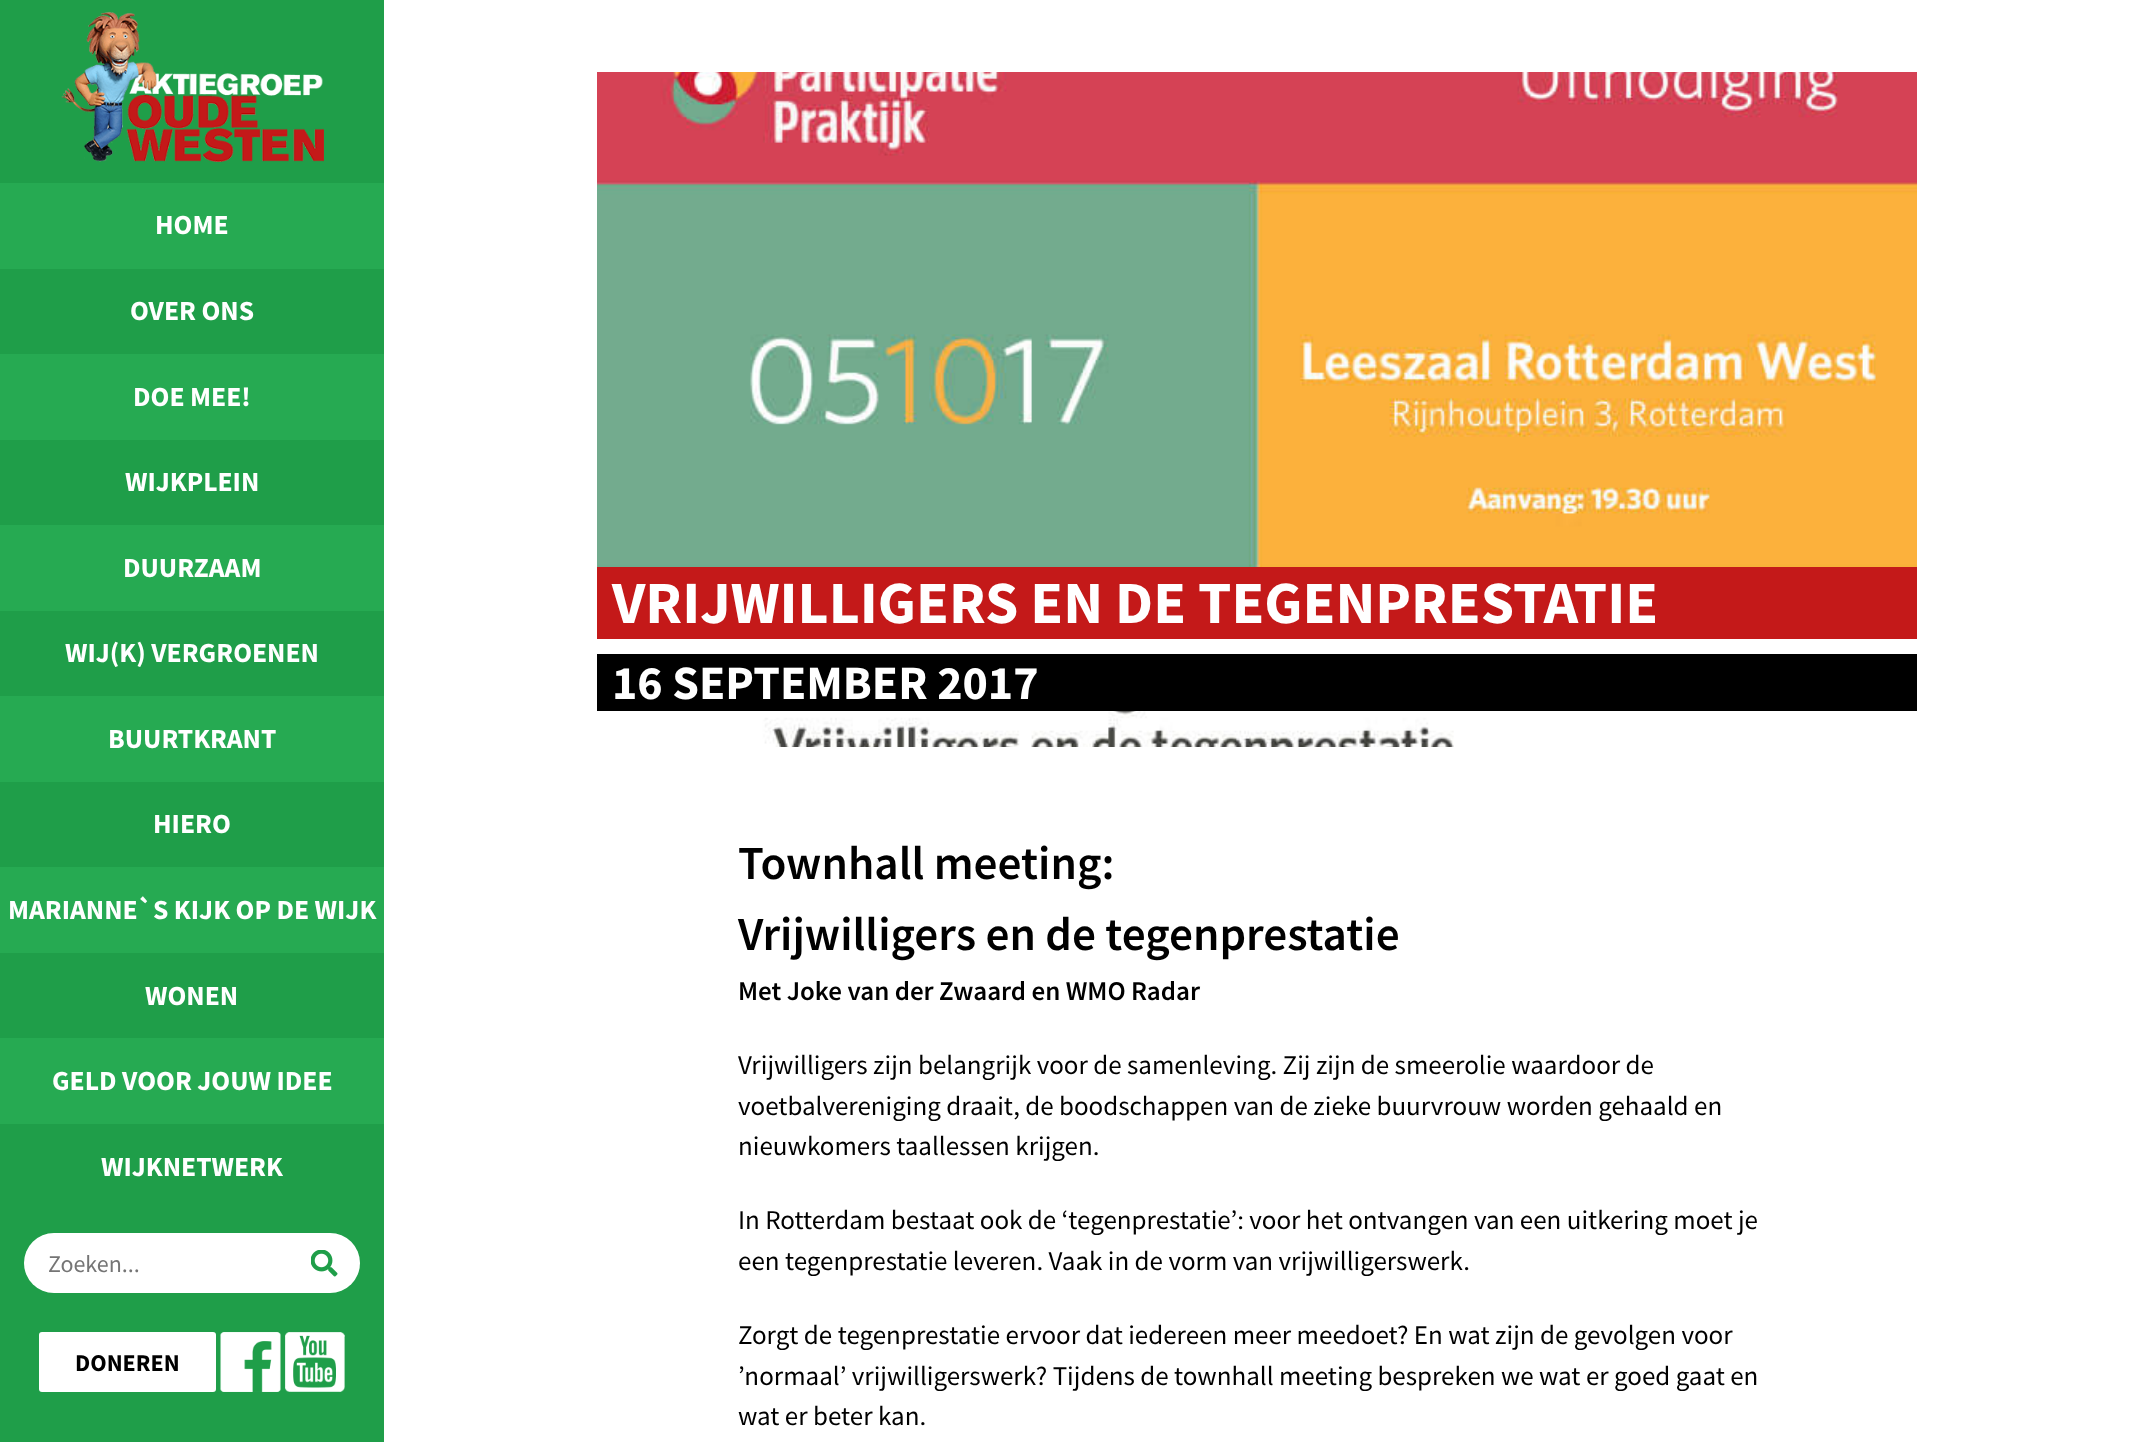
<svg xmlns="http://www.w3.org/2000/svg" width="2130" height="1442" viewBox="0 0 2130 1442">
  <style>
    .t1 { font: bold 27.6px Source Sans Pro; fill: #fff; }
    .t2 { font: 24px Source Sans Pro; fill: #757575; }
    .t3 { font: bold 24px Source Sans Pro; fill: #000; }
    .t4 { font: bold 60px Source Sans Pro; fill: #fff; }
    .t5 { font: bold 48px Source Sans Pro; fill: #fff; }
    .t6 { font: 600 47.25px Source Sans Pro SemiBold; fill: #000; }
    .t7 { font: 600 27px Source Sans Pro SemiBold; fill: #000; }
    .t8 { font: 27px Source Sans Pro; fill: #000; }
  </style>
  <rect width="100%" height="100%" fill="#fff"/>
  <rect x="0" y="0" width="384" height="1442" fill="#1f9e49"/>
  <image x="61" y="12" width="263" height="150" href="images/1.png"/>
  <rect x="0" y="183" width="384" height="86" fill="#26aa52"/>
  <text x="155" y="234" class="t1">HOME</text>
  <text x="130" y="320" class="t1">OVER ONS</text>
  <rect x="0" y="354" width="384" height="86" fill="#26aa52"/>
  <text x="133" y="406" class="t1">DOE MEE!</text>
  <text x="125" y="491" class="t1">WIJKPLEIN</text>
  <rect x="0" y="525" width="384" height="86" fill="#26aa52"/>
  <text x="123" y="577" class="t1">DUURZAAM</text>
  <text x="65" y="662" class="t1">WIJ(K) VERGROENEN</text>
  <rect x="0" y="696" width="384" height="86" fill="#26aa52"/>
  <text x="108" y="748" class="t1">BUURTKRANT</text>
  <text x="153" y="833" class="t1">HIERO</text>
  <rect x="0" y="867" width="384" height="86" fill="#26aa52"/>
  <text x="8" y="919" class="t1">MARIANNE`S KIJK OP DE WIJK</text>
  <text x="145" y="1005" class="t1">WONEN</text>
  <rect x="0" y="1038" width="384" height="86" fill="#26aa52"/>
  <text x="52" y="1090" class="t1">GELD VOOR JOUW IDEE</text>
  <text x="101" y="1176" class="t1">WIJKNETWERK</text>
  <rect x="24" y="1233" width="336" height="60" rx="30" fill="#fff"/>
  <text x="48" y="1272" class="t2">Zoeken...</text>
  <image x="311" y="1250" width="27" height="27" href="images/2.png"/>
  <rect x="39" y="1332" width="177" height="60" rx="3" fill="#fff"/>
  <text x="75" y="1371" class="t3">DONEREN</text>
  <image x="220" y="1332" width="61" height="60" href="images/3.png"/>
  <image x="285" y="1332" width="60" height="60" href="images/4.png"/>
  <image x="597" y="72" width="1320" height="675" href="images/5.png"/>
  <rect x="597" y="567" width="1320" height="72" fill="#c41919"/>
  <text x="612" y="623" class="t4">VRIJWILLIGERS EN DE TEGENPRESTATIE</text>
  <rect x="597" y="654" width="1320" height="57" fill="#000"/>
  <text x="612" y="699" class="t5">16 SEPTEMBER 2017</text>
  <text x="738" y="879" class="t6">Townhall meeting:</text>
  <text x="738" y="950" class="t6">Vrijwilligers en de tegenprestatie</text>
  <text x="738" y="1000" class="t7">Met Joke van der Zwaard en WMO Radar</text>
  <text x="738" y="1074" class="t8">Vrijwilligers zijn belangrijk voor de samenleving. Zij zijn de smeerolie waardoor de</text>
  <text x="738" y="1115" class="t8">voetbalvereniging draait, de boodschappen van de zieke buurvrouw worden gehaald en</text>
  <text x="738" y="1155" class="t8">nieuwkomers taallessen krijgen.</text>
  <text x="738" y="1229" class="t8">In Rotterdam bestaat ook de ‘tegenprestatie’: voor het ontvangen van een uitkering moet je</text>
  <text x="738" y="1270" class="t8">een tegenprestatie leveren. Vaak in de vorm van vrijwilligerswerk.</text>
  <text x="738" y="1344" class="t8">Zorgt de tegenprestatie ervoor dat iedereen meer meedoet? En wat zijn de gevolgen voor</text>
  <text x="738" y="1385" class="t8">’normaal’ vrijwilligerswerk? Tijdens de townhall meeting bespreken we wat er goed gaat en</text>
  <text x="738" y="1425" class="t8">wat er beter kan.</text>
</svg>
